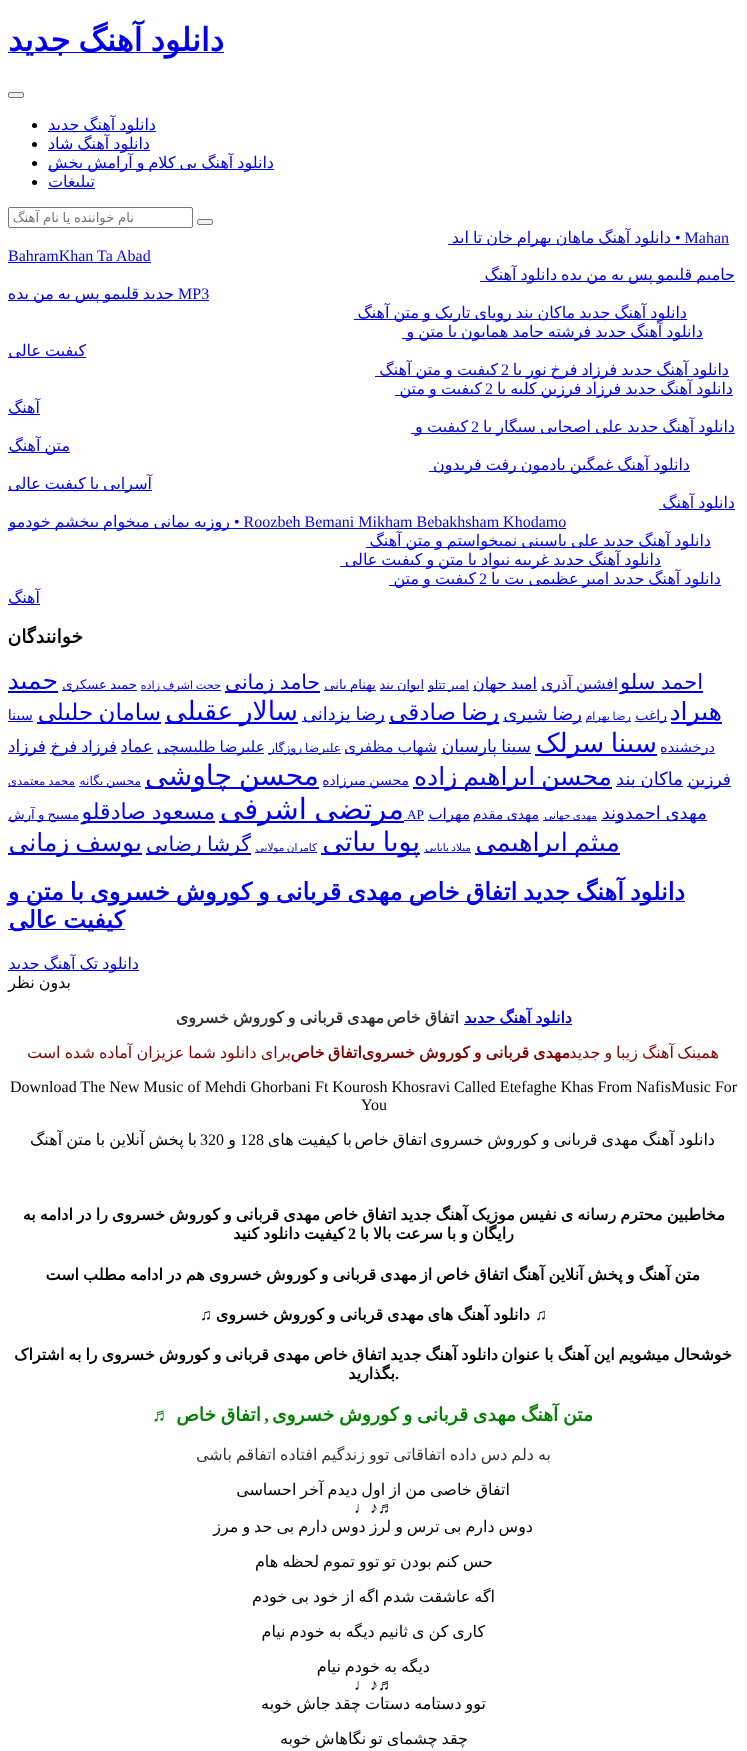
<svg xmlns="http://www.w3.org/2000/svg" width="747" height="1751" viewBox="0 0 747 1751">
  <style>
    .t1 { font: bold 32px DejaVu Sans; direction: rtl; fill: #00e; }
    .t2 { font: 16px DejaVu Sans; direction: rtl; fill: #00e; }
    .t3 { font: 13.25px DejaVu Sans; direction: rtl; fill: #757575; }
    .t4 { font: 16px Liberation Serif; fill: #00e; }
    .t5 { font: bold 18.75px DejaVu Sans; direction: rtl; fill: #000; }
    .t6 { font: 21px DejaVu Sans; direction: rtl; fill: #00e; }
    .t7 { font: 15.5px DejaVu Sans; direction: rtl; fill: #00e; }
    .t8 { font: 12.25px DejaVu Sans; direction: rtl; fill: #00e; }
    .t9 { font: 13px DejaVu Sans; direction: rtl; fill: #00e; }
    .t10 { font: 13.25px DejaVu Sans; direction: rtl; fill: #00e; }
    .t11 { font: 20.25px DejaVu Sans; direction: rtl; fill: #00e; }
    .t12 { font: 11.25px DejaVu Sans; direction: rtl; fill: #00e; }
    .t13 { font: 25px DejaVu Sans; direction: rtl; fill: #00e; }
    .t14 { font: 14px DejaVu Sans; direction: rtl; fill: #00e; }
    .t15 { font: 18px DejaVu Sans; direction: rtl; fill: #00e; }
    .t16 { font: 23px DejaVu Sans; direction: rtl; fill: #00e; }
    .t17 { font: 26.5px DejaVu Sans; direction: rtl; fill: #00e; }
    .t18 { font: 14.5px DejaVu Sans; direction: rtl; fill: #00e; }
    .t19 { font: 17px DejaVu Sans; direction: rtl; fill: #00e; }
    .t20 { font: 28.25px DejaVu Sans; direction: rtl; fill: #00e; }
    .t21 { font: 11.75px DejaVu Sans; direction: rtl; fill: #00e; }
    .t22 { font: 10.5px DejaVu Sans; direction: rtl; fill: #00e; }
    .t23 { font: 15px DejaVu Sans; direction: rtl; fill: #00e; }
    .t24 { font: 13.25px Liberation Serif; fill: #00e; }
    .t25 { font: 29.25px DejaVu Sans; direction: rtl; fill: #00e; }
    .t26 { font: 22px DejaVu Sans; direction: rtl; fill: #00e; }
    .t27 { font: 25.5px DejaVu Sans; direction: rtl; fill: #00e; }
    .t28 { font: 27px DejaVu Sans; direction: rtl; fill: #00e; }
    .t29 { font: bold 24px DejaVu Sans; direction: rtl; fill: #00e; }
    .t30 { font: 16px DejaVu Sans; direction: rtl; fill: #000; }
    .t31 { font: bold 16px DejaVu Sans; direction: rtl; fill: #00e; }
    .t32 { font: bold 16px DejaVu Sans; direction: rtl; fill: #333; }
    .t33 { font: 16px DejaVu Sans; direction: rtl; fill: #800000; }
    .t34 { font: bold 16px DejaVu Sans; direction: rtl; fill: #800000; }
    .t35 { font: 16px Liberation Serif; fill: #000; }
    .t36 { font: bold 16px DejaVu Sans; direction: rtl; fill: #000; }
    .t37 { font: bold 16px Liberation Serif; fill: #000; }
    .t38 { font: bold 18.75px DejaVu Sans; direction: rtl; fill: #008000; }
    .t39 { font: bold 18.75px Liberation Serif; direction: rtl; fill: #008000; }
    .t40 { font: bold 18.75px Liberation Serif; fill: #008000; }
    .t41 { font: 16px DejaVu Sans; direction: rtl; fill: #333; }
  </style>
  <defs>
    <clipPath id="clip1"><rect x="12" y="210" width="177" height="15"/></clipPath>
  </defs>
  <rect width="100%" height="100%" fill="#fff"/>
  <rect x="8" y="52" width="216" height="1" fill="#00e"/>
  <text x="224" y="51" word-spacing="-2" class="t1">دانلود آهنگ جدید</text>
  <rect x="8.5" y="92.5" width="15" height="5" rx="1.5" fill="#efefef" stroke="#767676"/>
  <rect x="48" y="131" width="108" height="1" fill="#00e"/>
  <text x="156" y="130" word-spacing="-1.1" class="t2">دانلود آهنگ جدید</text>
  <circle cx="34.5" cy="125.5" r="2.5" fill="#000"/>
  <rect x="48" y="150" width="102" height="1" fill="#00e"/>
  <text x="150" y="149" word-spacing="-1.1" class="t2">دانلود آهنگ شاد</text>
  <circle cx="34.5" cy="144.5" r="2.5" fill="#000"/>
  <rect x="48" y="169" width="226" height="1" fill="#00e"/>
  <text x="274" y="168" word-spacing="-1.1" class="t2">دانلود آهنگ بی کلام و آرامش بخش</text>
  <circle cx="34.5" cy="163.5" r="2.5" fill="#000"/>
  <rect x="48" y="188" width="47" height="1" fill="#00e"/>
  <text x="95" y="187" class="t2">تبلیغات</text>
  <circle cx="34.5" cy="182.5" r="2.5" fill="#000"/>
  <rect x="197.5" y="219.5" width="15" height="5" rx="1.5" fill="#efefef" stroke="#767676"/>
  <rect x="8.5" y="207.5" width="184" height="20" rx="1.5" fill="none" stroke="#767676"/>
  <g clip-path="url(#clip1)">
    <text x="134" y="222" word-spacing="-0.5" class="t3">نام خواننده یا نام آهنگ</text>
  </g>
  <text x="675" y="243" class="t4">• Mahan</text>
  <rect x="448" y="244" width="281" height="1" fill="#00e"/>
  <text x="671" y="243" word-spacing="-1.1" class="t2">دانلود آهنگ ماهان بهرام خان تا ابد</text>
  <text x="116" y="261" class="t4">Abad</text>
  <text x="8" y="261" class="t4">BahramKhan Ta</text>
  <rect x="8" y="262" width="143" height="1" fill="#00e"/>
  <rect x="480" y="281" width="255" height="1" fill="#00e"/>
  <text x="735" y="280" word-spacing="-1.1" class="t2">حامیم قلبمو پس به من بده دانلود آهنگ</text>
  <text x="178" y="299" class="t4">MP3</text>
  <rect x="8" y="300" width="201" height="1" fill="#00e"/>
  <text x="174" y="299" word-spacing="-1.1" class="t2">جدید قلبمو پس به من بده</text>
  <rect x="354" y="319" width="333" height="1" fill="#00e"/>
  <text x="687" y="318" word-spacing="-1.1" class="t2">دانلود آهنگ جديد ماکان بند رویای تاریک و متن آهنگ</text>
  <rect x="402" y="338" width="301" height="1" fill="#00e"/>
  <text x="703" y="337" word-spacing="-1.1" class="t2">دانلود آهنگ جديد فرشته حامد همایون با متن و</text>
  <rect x="8" y="357" width="78" height="1" fill="#00e"/>
  <text x="86" y="356" word-spacing="-1.1" class="t2">کیفیت عالی</text>
  <rect x="375" y="376" width="354" height="1" fill="#00e"/>
  <text x="729" y="375" word-spacing="-1.1" class="t2">دانلود آهنگ جديد فرزاد فرخ نور با</text>
  <text x="501" y="375" class="t4">2</text>
  <text x="498" y="375" word-spacing="-1" class="t2">کیفیت و متن آهنگ</text>
  <rect x="395" y="395" width="338" height="1" fill="#00e"/>
  <text x="733" y="394" word-spacing="-1.1" class="t2">دانلود آهنگ جديد فرزاد فرزین کلبه با</text>
  <text x="485" y="394" class="t4">2</text>
  <text x="482" y="394" word-spacing="-1" class="t2">کیفیت و متن</text>
  <text x="40" y="413" class="t2">آهنگ</text>
  <rect x="8" y="414" width="32" height="1" fill="#00e"/>
  <rect x="411" y="433" width="324" height="1" fill="#00e"/>
  <text x="735" y="432" word-spacing="-1.1" class="t2">دانلود آهنگ جديد علی اصحابی سیگار با</text>
  <text x="471" y="432" class="t4">2</text>
  <text x="468" y="432" word-spacing="-1" class="t2">کیفیت و</text>
  <rect x="8" y="452" width="62" height="1" fill="#00e"/>
  <text x="70" y="451" word-spacing="-1.1" class="t2">متن آهنگ</text>
  <rect x="429" y="471" width="261" height="1" fill="#00e"/>
  <text x="690" y="470" word-spacing="-1.1" class="t2">دانلود آهنگ غمگین یادمون رفت فریدون</text>
  <rect x="8" y="490" width="144" height="1" fill="#00e"/>
  <text x="152" y="489" word-spacing="-1.1" class="t2">آسرایی با کیفیت عالی</text>
  <rect x="659" y="509" width="76" height="1" fill="#00e"/>
  <text x="735" y="508" word-spacing="-1.1" class="t2">دانلود آهنگ</text>
  <text x="234" y="527" class="t4">• Roozbeh Bemani Mikham Bebakhsham Khodamo</text>
  <rect x="8" y="528" width="558" height="1" fill="#00e"/>
  <text x="230" y="527" word-spacing="-1.1" class="t2">روزبه بمانی میخوام ببخشم خودمو</text>
  <rect x="366" y="547" width="345" height="1" fill="#00e"/>
  <text x="711" y="546" word-spacing="-1.1" class="t2">دانلود آهنگ جديد علی یاسینی نمیخواستم و متن آهنگ</text>
  <rect x="340" y="566" width="321" height="1" fill="#00e"/>
  <text x="661" y="565" word-spacing="-1.1" class="t2">دانلود آهنگ جديد غریبه نیواد با متن و کیفیت عالی</text>
  <rect x="389" y="585" width="332" height="1" fill="#00e"/>
  <text x="721" y="584" word-spacing="-1.1" class="t2">دانلود آهنگ جديد امیر عظیمی بت با</text>
  <text x="479" y="584" class="t4">2</text>
  <text x="476" y="584" word-spacing="-1" class="t2">کیفیت و متن</text>
  <text x="40" y="603" class="t2">آهنگ</text>
  <rect x="8" y="604" width="32" height="1" fill="#00e"/>
  <text x="83" y="643" class="t5">خوانندگان</text>
  <rect x="622" y="691" width="81" height="2" fill="#00e"/>
  <text x="703" y="689" word-spacing="-1" class="t6">احمد سلو</text>
  <rect x="541" y="690" width="77" height="1" fill="#00e"/>
  <text x="618" y="689" word-spacing="-1" class="t7">افشین آذری</text>
  <rect x="473" y="690" width="64" height="1" fill="#00e"/>
  <text x="537" y="689" word-spacing="-1.1" class="t2">امید جهان</text>
  <rect x="428" y="690" width="41" height="1" fill="#00e"/>
  <text x="469" y="689" word-spacing="-1" class="t8">امیر تتلو</text>
  <rect x="380" y="690" width="44" height="1" fill="#00e"/>
  <text x="424" y="689" word-spacing="-1" class="t9">ایوان بند</text>
  <rect x="324" y="690" width="52" height="1" fill="#00e"/>
  <text x="376" y="689" word-spacing="-1" class="t10">بهنام بانی</text>
  <rect x="225" y="691" width="95" height="2" fill="#00e"/>
  <text x="320" y="689" word-spacing="-1" class="t11">حامد زمانی</text>
  <rect x="141" y="690" width="80" height="1" fill="#00e"/>
  <text x="221" y="689" word-spacing="-1" class="t12">حجت اشرف زاده</text>
  <rect x="62" y="690" width="75" height="1" fill="#00e"/>
  <text x="137" y="689" word-spacing="-1" class="t10">حمید عسکری</text>
  <rect x="8" y="691" width="50" height="2" fill="#00e"/>
  <text x="58" y="689" class="t13">حمید</text>
  <rect x="671" y="722" width="51" height="2" fill="#00e"/>
  <text x="722" y="720" class="t13">هیراد</text>
  <rect x="635" y="721" width="32" height="1" fill="#00e"/>
  <text x="667" y="720" class="t14">راغب</text>
  <rect x="586" y="721" width="45" height="1" fill="#00e"/>
  <text x="631" y="720" word-spacing="-1" class="t12">رضا بهرام</text>
  <rect x="503" y="721" width="79" height="1" fill="#00e"/>
  <text x="582" y="720" word-spacing="-1" class="t15">رضا شیری</text>
  <rect x="389" y="722" width="110" height="2" fill="#00e"/>
  <text x="499" y="720" word-spacing="-2" class="t16">رضا صادقی</text>
  <rect x="302" y="721" width="83" height="1" fill="#00e"/>
  <text x="385" y="720" word-spacing="-1" class="t15">رضا یزدانی</text>
  <rect x="165" y="722" width="133" height="2" fill="#00e"/>
  <text x="298" y="720" word-spacing="-2" class="t17">سالار عقیلی</text>
  <rect x="37" y="722" width="124" height="2" fill="#00e"/>
  <text x="161" y="720" word-spacing="-2" class="t16">سامان جلیلی</text>
  <rect x="8" y="721" width="25" height="1" fill="#00e"/>
  <text x="33" y="720" class="t18">سینا</text>
  <rect x="661" y="753" width="54" height="1" fill="#00e"/>
  <text x="715" y="752" class="t18">درخشنده</text>
  <rect x="535" y="754" width="122" height="2" fill="#00e"/>
  <text x="657" y="752" word-spacing="-2" class="t17">سینا سرلک</text>
  <rect x="441" y="753" width="90" height="1" fill="#00e"/>
  <text x="531" y="752" word-spacing="-1" class="t19">سینا پارسیان</text>
  <rect x="345" y="753" width="92" height="1" fill="#00e"/>
  <text x="437" y="752" word-spacing="-1" class="t7">شهاب مظفری</text>
  <rect x="268" y="753" width="73" height="1" fill="#00e"/>
  <text x="341" y="752" word-spacing="-1" class="t8">علیرضا روزگار</text>
  <rect x="157" y="753" width="107" height="1" fill="#00e"/>
  <text x="265" y="752" word-spacing="-1" class="t7">علیرضا طلیسچی</text>
  <text x="153" y="752" class="t19">عماد</text>
  <rect x="121" y="753" width="32" height="1" fill="#00e"/>
  <rect x="50" y="753" width="67" height="1" fill="#00e"/>
  <text x="117" y="752" word-spacing="-1.1" class="t2">فرزاد فرخ</text>
  <rect x="8" y="753" width="38" height="1" fill="#00e"/>
  <text x="46" y="752" class="t19">فرزاد</text>
  <rect x="687" y="786" width="44" height="1" fill="#00e"/>
  <text x="731" y="785" class="t19">فرزین</text>
  <rect x="616" y="786" width="67" height="1" fill="#00e"/>
  <text x="683" y="785" word-spacing="-1" class="t15">ماکان بند</text>
  <rect x="413" y="787" width="199" height="2" fill="#00e"/>
  <text x="612" y="785" word-spacing="-2" class="t13">محسن ابراهیم زاده</text>
  <rect x="323" y="786" width="86" height="1" fill="#00e"/>
  <text x="409" y="785" word-spacing="-1" class="t14">محسن میرزاده</text>
  <rect x="145" y="787" width="174" height="2" fill="#00e"/>
  <text x="319" y="785" word-spacing="-2" class="t20">محسن چاوشی</text>
  <rect x="79" y="786" width="62" height="1" fill="#00e"/>
  <text x="141" y="785" word-spacing="-1" class="t8">محسن یگانه</text>
  <rect x="8" y="786" width="67" height="1" fill="#00e"/>
  <text x="75" y="785" word-spacing="-1" class="t21">محمد معتمدی</text>
  <rect x="601" y="820" width="106" height="1" fill="#00e"/>
  <text x="707" y="819" word-spacing="-1" class="t15">مهدی احمدوند</text>
  <rect x="543" y="820" width="54" height="1" fill="#00e"/>
  <text x="597" y="819" word-spacing="-1" class="t22">مهدی جهانی</text>
  <rect x="474" y="820" width="65" height="1" fill="#00e"/>
  <text x="539" y="819" word-spacing="-1" class="t14">مهدی مقدم</text>
  <rect x="428" y="820" width="42" height="1" fill="#00e"/>
  <text x="470" y="819" class="t23">مهراب</text>
  <text x="407" y="819" class="t24">AP</text>
  <rect x="404" y="820" width="20" height="1" fill="#00e"/>
  <rect x="219" y="821" width="185" height="2" fill="#00e"/>
  <text x="404" y="819" word-spacing="-2" class="t25">مرتضی اشرفی</text>
  <rect x="83" y="821" width="132" height="2" fill="#00e"/>
  <text x="215" y="819" word-spacing="-1" class="t26">مسعود صادقلو</text>
  <rect x="8" y="820" width="71" height="1" fill="#00e"/>
  <text x="79" y="819" word-spacing="-1" class="t10">مسیح و آرش</text>
  <rect x="475" y="853" width="145" height="2" fill="#00e"/>
  <text x="620" y="851" word-spacing="-2" class="t27">میثم ابراهیمی</text>
  <rect x="424" y="852" width="47" height="1" fill="#00e"/>
  <text x="471" y="851" word-spacing="-1" class="t22">میلاد بابایی</text>
  <rect x="321" y="853" width="99" height="2" fill="#00e"/>
  <text x="420" y="851" word-spacing="-2" class="t28">پویا بیاتی</text>
  <rect x="255" y="852" width="62" height="1" fill="#00e"/>
  <text x="317" y="851" word-spacing="-1" class="t22">کامران مولایی</text>
  <rect x="146" y="853" width="105" height="2" fill="#00e"/>
  <text x="251" y="851" word-spacing="-1" class="t11">گرشا رضایی</text>
  <rect x="8" y="853" width="134" height="2" fill="#00e"/>
  <text x="142" y="851" word-spacing="-2" class="t13">یوسف زمانی</text>
  <rect x="8" y="901" width="677" height="1" fill="#00e"/>
  <text x="685" y="900" word-spacing="-1.6" class="t29">دانلود آهنگ جديد اتفاق خاص مهدی قربانی و کوروش خسروی با متن و</text>
  <rect x="8" y="929" width="117" height="1" fill="#00e"/>
  <text x="125" y="928" word-spacing="-1.6" class="t29">کیفیت عالی</text>
  <rect x="8" y="970" width="131" height="1" fill="#00e"/>
  <text x="139" y="969" word-spacing="-1.1" class="t2">دانلود تک آهنگ جدید</text>
  <text x="71" y="988" word-spacing="-1.1" class="t30">بدون نظر</text>
  <rect x="464" y="1024" width="108" height="1" fill="#00e"/>
  <text x="572" y="1023" word-spacing="-1.1" class="t31">دانلود آهنگ جدید</text>
  <text x="459" y="1023" word-spacing="-1.1" class="t32">اتفاق خاص</text>
  <text x="384" y="1023" word-spacing="-1.1" class="t32">مهدی قربانی و کوروش خسروی</text>
  <text x="719" y="1058" class="t33">همینک</text>
  <text x="674" y="1058" word-spacing="-1.1" class="t33">آهنگ زیبا و جدید</text>
  <text x="570" y="1058" word-spacing="-1.1" class="t34">مهدی قربانی و کوروش خسروی</text>
  <text x="362" y="1058" word-spacing="-2" class="t34">اتفاق خاص</text>
  <text x="291" y="1058" word-spacing="-1" class="t33">برای دانلود شما عزیزان آماده شده است</text>
  <text x="10" y="1092" class="t35">Download The New Music of Mehdi Ghorbani Ft Kourosh Khosravi Called Etefaghe Khas From NafisMusic For</text>
  <text x="361" y="1110" class="t35">You</text>
  <text x="715" y="1145" word-spacing="-1.1" class="t30">دانلود آهنگ مهدی قربانی و کوروش خسروی</text>
  <text x="427" y="1145" word-spacing="-1.1" class="t30">اتفاق خاص</text>
  <text x="352" y="1145" word-spacing="-1.1" class="t30">با کیفیت های</text>
  <text x="240" y="1145" class="t35">128</text>
  <text x="236" y="1145" class="t30">و</text>
  <text x="200" y="1145" class="t35">320</text>
  <text x="197" y="1145" word-spacing="-1" class="t30">با پخش آنلاین با متن آهنگ</text>
  <text x="725" y="1220" word-spacing="-1.1" class="t36">مخاطبین محترم رسانه ی نفیس موزیک آهنگ جدید اتفاق خاص مهدی قربانی و کوروش خسروی را در ادامه به</text>
  <text x="514" y="1239" word-spacing="-1.1" class="t36">رایگان و با سرعت بالا با</text>
  <text x="348" y="1239" class="t37">2</text>
  <text x="345" y="1239" word-spacing="-1" class="t36">کیفیت دانلود کنید</text>
  <text x="700" y="1280" word-spacing="-1.1" class="t36">متن آهنگ و پخش آنلاین آهنگ اتفاق خاص از</text>
  <text x="417" y="1280" word-spacing="-1.1" class="t36">مهدی قربانی و کوروش خسروی هم در ادامه مطلب است</text>
  <text x="535" y="1320" class="t37">♫</text>
  <text x="530" y="1320" word-spacing="-1.1" class="t36">دانلود آهنگ های</text>
  <text x="424" y="1320" word-spacing="-1.1" class="t36">مهدی قربانی و کوروش خسروی</text>
  <text x="200" y="1320" class="t37">♫</text>
  <text x="732" y="1360" word-spacing="-1.1" class="t36">خوشحال میشویم این آهنگ با عنوان</text>
  <text x="498" y="1360" word-spacing="-1.1" class="t36">دانلود آهنگ جدید اتفاق خاص مهدی قربانی و کوروش خسروی را به اشتراک</text>
  <text x="395" y="1379" class="t37">.</text>
  <text x="395" y="1379" class="t36">بگذارید</text>
  <text x="593" y="1421" word-spacing="-1.25" class="t38">متن آهنگ مهدی قربانی و کوروش خسروی</text>
  <text x="269" y="1421" class="t39">,</text>
  <text x="261" y="1421" word-spacing="-1.25" class="t38">اتفاق خاص</text>
  <text x="152" y="1421" class="t40">♬</text>
  <text x="551" y="1460" word-spacing="-1.1" class="t41">به دلم دس داده اتفاقاتی توو زندگیم افتاده اتفاقم باشی</text>
  <text x="510" y="1495" word-spacing="-1.1" class="t30">اتفاق خاصی من از اول دیدم آخر احساسی</text>
  <text x="354" y="1513" class="t35">♩♪♬</text>
  <text x="533" y="1532" word-spacing="-1.1" class="t30">دوس دارم بی ترس و لرز دوس دارم بی حد و مرز</text>
  <text x="493" y="1567" word-spacing="-1.1" class="t30">حس کنم بودن تو توو تموم لحظه هام</text>
  <text x="495" y="1602" word-spacing="-1.1" class="t30">اگه عاشقت شدم اگه از خود بی خودم</text>
  <text x="485" y="1637" word-spacing="-1.1" class="t30">کاری کن ی ثانیم دیگه به خودم نیام</text>
  <text x="430" y="1672" word-spacing="-1.1" class="t30">دیگه به خودم نیام</text>
  <text x="354" y="1690" class="t35">♩♪♬</text>
  <text x="486" y="1709" word-spacing="-1.1" class="t30">توو دستامه دستات چقد جاش خوبه</text>
  <text x="468" y="1744" word-spacing="-1.1" class="t30">چقد چشمای تو نگاهاش خوبه</text>
</svg>
